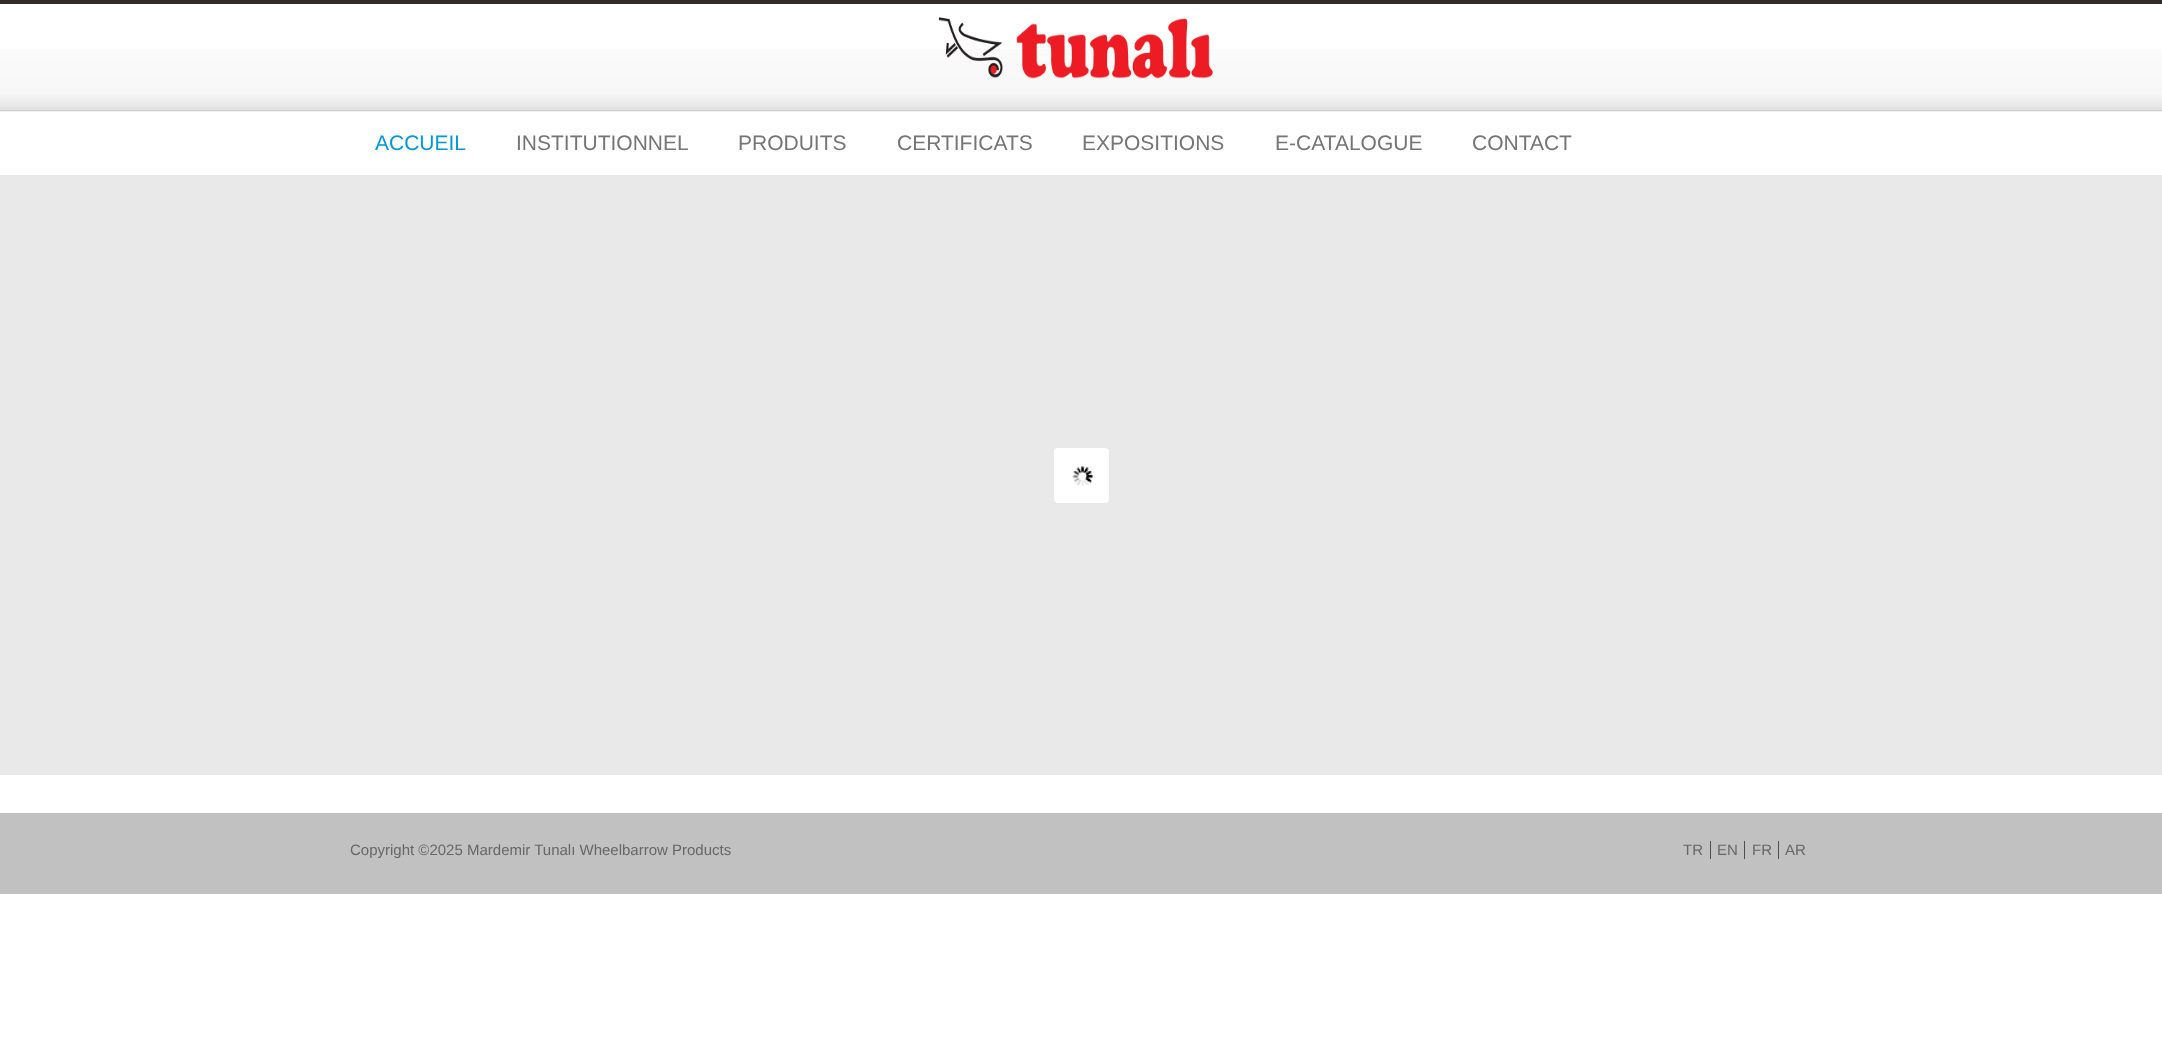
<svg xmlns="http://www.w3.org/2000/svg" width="2162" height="1052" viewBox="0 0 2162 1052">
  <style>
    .t1 { font: 21px Liberation Sans; fill: #0098d9; }
    .t2 { font: 21px Liberation Sans; fill: #757575; }
    .t3 { font: 15px Liberation Sans; fill: #676767; }
  </style>
  <rect width="100%" height="100%" fill="#fff"/>
  <image x="0" y="49" width="2162" height="63" href="images/1.png"/>
  <rect x="0" y="0" width="2162" height="4" fill="#322c29"/>
  <image x="938" y="17" width="275" height="62" href="images/2.png"/>
  <text x="375" y="150" class="t1">ACCUEIL</text>
  <text x="516" y="150" class="t2">INSTITUTIONNEL</text>
  <text x="738" y="150" class="t2">PRODUITS</text>
  <text x="897" y="150" class="t2">CERTIFICATS</text>
  <text x="1082" y="150" class="t2">EXPOSITIONS</text>
  <text x="1275" y="150" class="t2">E-CATALOGUE</text>
  <text x="1472" y="150" class="t2">CONTACT</text>
  <rect x="0" y="175" width="2162" height="600" fill="#e9e9e9"/>
  <rect x="1054" y="448" width="55" height="55" rx="4" fill="#fff"/>
  <image x="1072" y="466" width="21" height="21" href="images/3.png"/>
  <rect x="0" y="813" width="2162" height="81" fill="#c1c1c1"/>
  <text x="350" y="855" class="t3">Copyright ©2025 Mardemir Tunalı Wheelbarrow Products</text>
  <text x="1683" y="855" class="t3">TR</text>
  <rect x="1710" y="841" width="1" height="18" fill="#4f4f4f"/>
  <text x="1717" y="855" class="t3">EN</text>
  <rect x="1744" y="841" width="1" height="18" fill="#4f4f4f"/>
  <text x="1752" y="855" class="t3">FR</text>
  <rect x="1778" y="841" width="1" height="18" fill="#4f4f4f"/>
  <text x="1785" y="855" class="t3">AR</text>
</svg>
